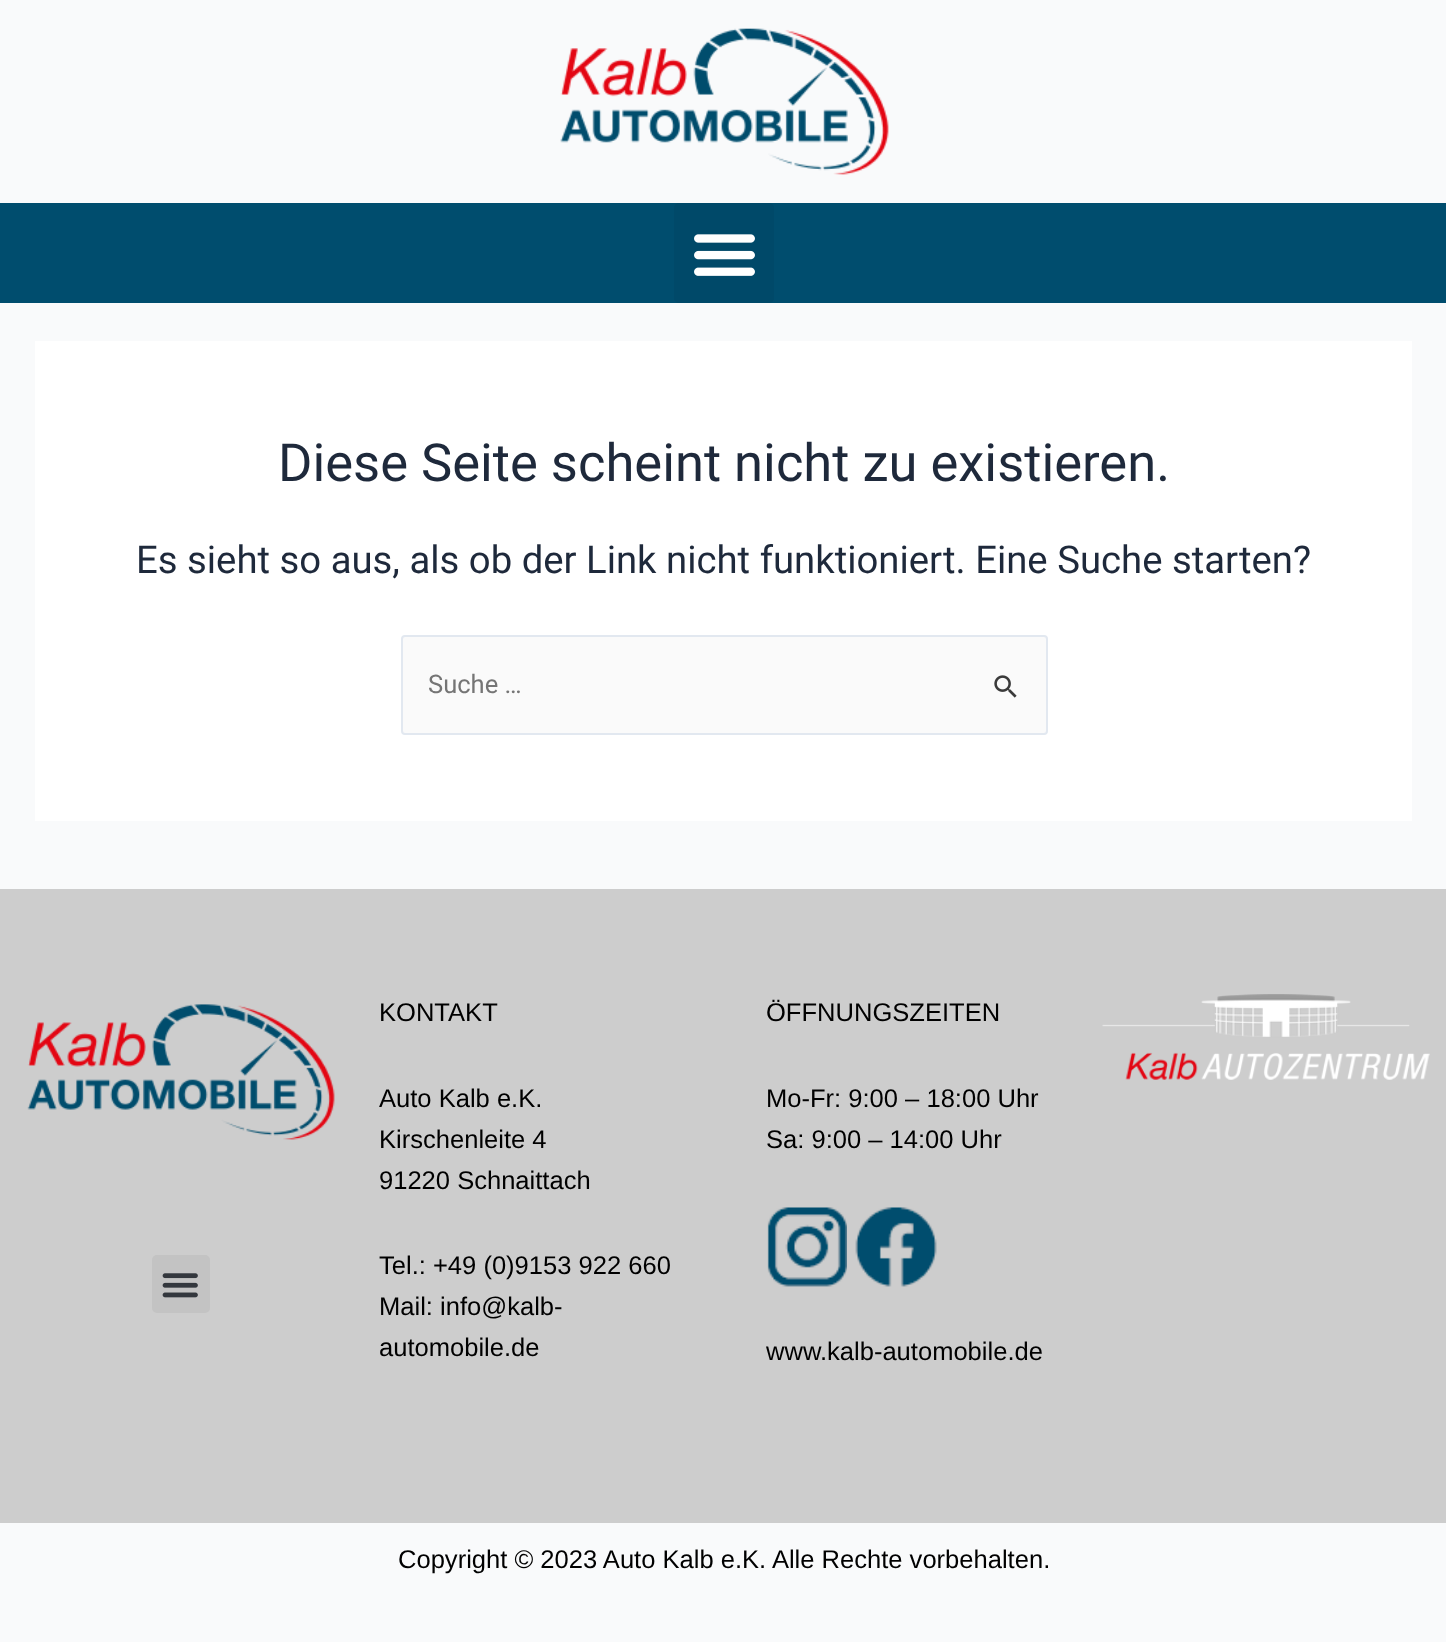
<svg xmlns="http://www.w3.org/2000/svg" width="1446" height="1642" viewBox="0 0 1446 1642">
  <style>
    .t1 { font: 52.5px Roboto; fill: #1e293b; }
    .t2 { font: 38.3px Roboto; fill: #1e293b; }
    .t3 { font: 25.55px Roboto; fill: #757575; }
    .t4 { font: 25.55px Liberation Sans; fill: #000; }
  </style>
  <rect width="100%" height="100%" fill="#f9fafb"/>
  <image x="560" y="28" width="329" height="147" href="images/1.png"/>
  <rect x="0" y="203" width="1446" height="100" fill="#004d6e"/>
  <rect x="674" y="203" width="100" height="100" rx="5" fill="#004969"/>
  <image x="694" y="234" width="61" height="42" href="images/2.png"/>
  <rect x="35" y="341" width="1377" height="480" fill="#fff"/>
  <text x="278" y="481" class="t1">Diese Seite scheint nicht zu existieren.</text>
  <text x="136" y="573" class="t2">Es sieht so aus, als ob der Link nicht funktioniert. Eine Suche starten?</text>
  <rect x="402" y="636" width="645" height="98" rx="3" fill="#fafafa" stroke="#e2e8f0" stroke-width="2"/>
  <text x="428" y="693" class="t3">Suche …</text>
  <image x="994" y="675" width="23" height="23" href="images/3.png"/>
  <rect x="0" y="889" width="1446" height="634" fill="#cdcdcd"/>
  <image x="27" y="1004" width="308" height="136" href="images/4.png"/>
  <rect x="152" y="1255" width="58" height="58" rx="5" fill="#c3c3c3"/>
  <image x="162" y="1273" width="36" height="25" href="images/5.png"/>
  <text x="379" y="1021" class="t4">KONTAKT</text>
  <text x="379" y="1107" class="t4">Auto Kalb e.K.</text>
  <text x="379" y="1148" class="t4">Kirschenleite 4</text>
  <text x="379" y="1189" class="t4">91220 Schnaittach</text>
  <text x="379" y="1274" class="t4">Tel.: +49 (0)9153 922 660</text>
  <text x="379" y="1315" class="t4">Mail: info@kalb-</text>
  <text x="379" y="1356" class="t4">automobile.de</text>
  <text x="766" y="1021" class="t4">ÖFFNUNGSZEITEN</text>
  <text x="766" y="1107" class="t4">Mo-Fr: 9:00 – 18:00 Uhr</text>
  <text x="766" y="1148" class="t4">Sa: 9:00 – 14:00 Uhr</text>
  <image x="767" y="1207" width="80" height="80" href="images/6.png"/>
  <image x="855" y="1207" width="82" height="80" href="images/7.png"/>
  <text x="766" y="1360" class="t4">www.kalb-automobile.de</text>
  <image x="1102" y="994" width="328" height="86" href="images/8.png"/>
  <text x="398" y="1568" class="t4">Copyright © 2023 Auto Kalb e.K. Alle Rechte vorbehalten.</text>
</svg>
